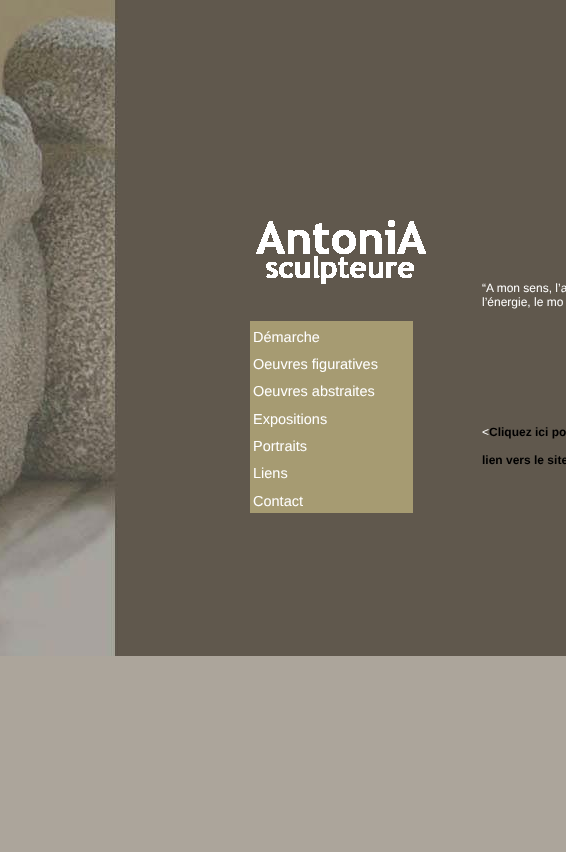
<svg xmlns="http://www.w3.org/2000/svg" width="566" height="852" viewBox="0 0 566 852">
  <style>
    .t1 { font: 14.5px Liberation Sans; fill: #fff; }
    .t2 { font: 12px Liberation Sans; fill: #fff; }
    .t3 { font: bold 12px Liberation Sans; fill: #000; }
  </style>
  <rect width="100%" height="100%" fill="#aca59b"/>
  <image x="0" y="0" width="566" height="656" href="images/1.png"/>
  <image x="256" y="220" width="170" height="64" href="images/2.png"/>
  <rect x="250" y="321" width="163" height="192" fill="#a69b72"/>
  <text x="253" y="342" class="t1">Démarche</text>
  <text x="253" y="369" class="t1">Oeuvres figuratives</text>
  <text x="253" y="396" class="t1">Oeuvres abstraites</text>
  <text x="253" y="424" class="t1">Expositions</text>
  <text x="253" y="451" class="t1">Portraits</text>
  <text x="253" y="478" class="t1">Liens</text>
  <text x="253" y="506" class="t1">Contact</text>
  <text x="482" y="292" class="t2">“A mon sens, l’a</text>
  <text x="482" y="306" class="t2">l’énergie, le mo</text>
  <text x="482" y="436" class="t2">&lt;</text>
  <text x="489" y="436" class="t3">Cliquez ici po</text>
  <text x="482" y="464" class="t3">lien vers le site</text>
</svg>
